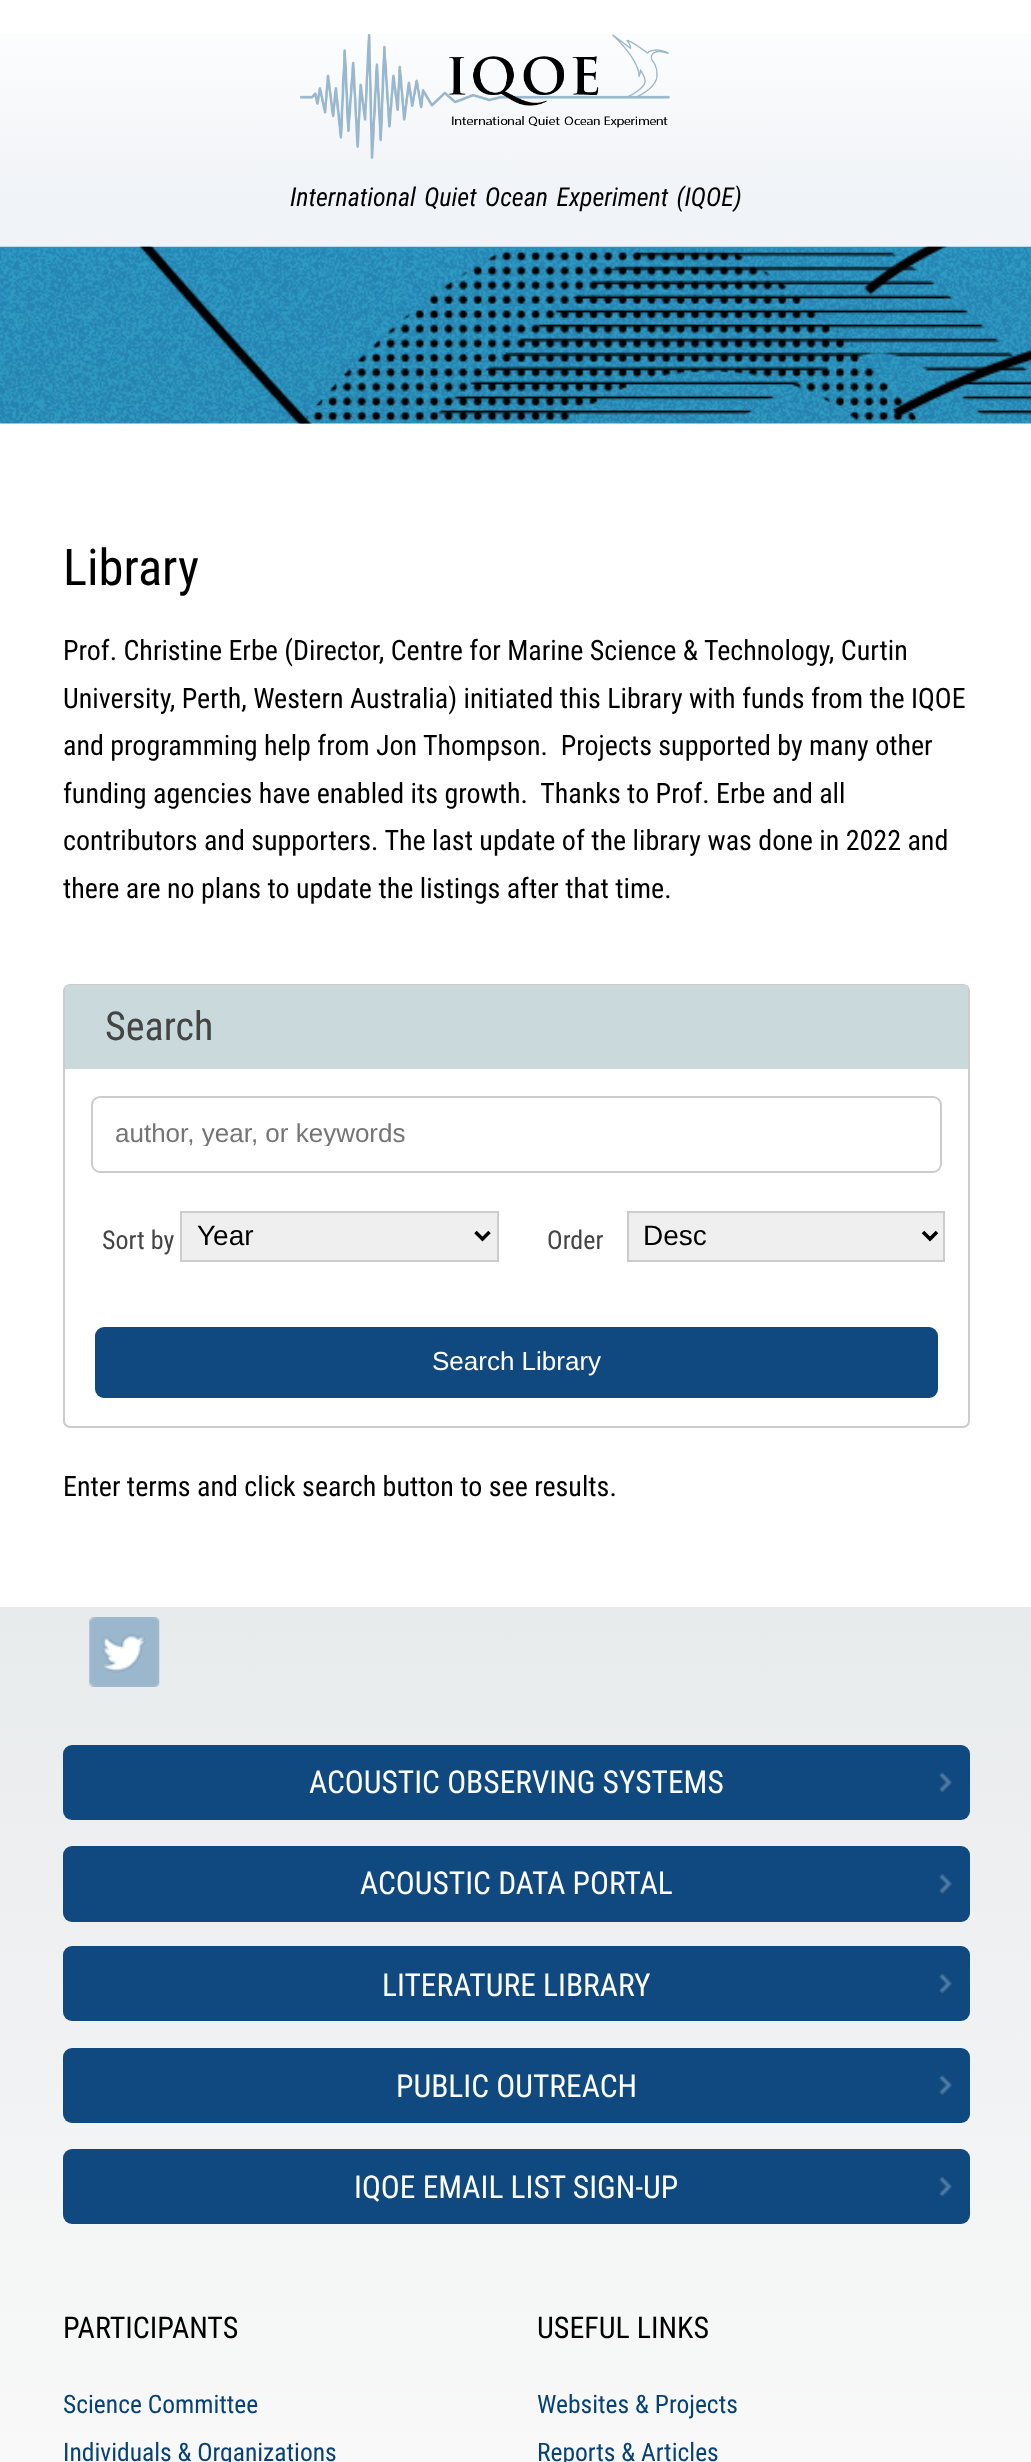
<svg xmlns="http://www.w3.org/2000/svg" width="1031" height="2462" viewBox="0 0 1031 2462">
  <style>
    .t1 { font: italic 26px Roboto Condensed; fill: #000; }
    .t2 { font: 50.5px Roboto Condensed; fill: #000; }
    .t3 { font: 28px Roboto Condensed; fill: #000; }
    .t4 { font: 40px Roboto Condensed; fill: #444; }
    .t5 { font: 26px Liberation Sans; fill: #757575; }
    .t6 { font: 26px Roboto Condensed; fill: #444; }
    .t7 { font: 28px Liberation Sans; fill: #000; }
    .t8 { font: 26px Liberation Sans; fill: #fff; }
    .t9 { font: 31.5px Roboto Condensed; fill: #fff; }
    .t10 { font: 30px Roboto Condensed; fill: #000; }
    .t11 { font: 25.5px Roboto Condensed; fill: #074177; }
  </style>
  <defs>
    <linearGradient id="g1" gradientUnits="userSpaceOnUse" x1="516" y1="0" x2="516" y2="247"><stop offset="0" stop-color="#fff"/><stop offset="0.8" stop-color="#f0f3f7"/></linearGradient>
    <clipPath id="clip1"><rect x="114" y="1118" width="805" height="28"/></clipPath>
    <linearGradient id="g2" gradientUnits="userSpaceOnUse" x1="516" y1="1607" x2="516" y2="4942"><stop offset="0" stop-color="#e8ebec"/><stop offset="0.26" stop-color="#f9f9f9"/></linearGradient>
  </defs>
  <rect width="100%" height="100%" fill="#fff"/>
  <rect x="0" y="33" width="1031" height="214" fill="url(#g1)"/>
  <image x="300" y="34" width="370" height="125" href="images/1.png"/>
  <text x="290" y="206" word-spacing="2.5" class="t1">International Quiet Ocean Experiment (IQOE)</text>
  <image x="0" y="246" width="1031" height="178" href="images/2.png"/>
  <text x="63" y="585" class="t2">Library</text>
  <text x="63" y="660" class="t3">Prof. Christine Erbe (Director, Centre for Marine Science &amp; Technology, Curtin</text>
  <text x="63" y="708" class="t3">University, Perth, Western Australia) initiated this Library with funds from the IQOE</text>
  <text x="63" y="755" class="t3" xml:space="preserve">and programming help from Jon Thompson.  Projects supported by many other</text>
  <text x="63" y="803" class="t3" xml:space="preserve">funding agencies have enabled its growth.  Thanks to Prof. Erbe and all</text>
  <text x="63" y="850" class="t3">contributors and supporters. The last update of the library was done in 2022 and</text>
  <text x="63" y="898" class="t3">there are no plans to update the listings after that time.</text>
  <rect x="64" y="985" width="905" height="442" rx="6" fill="none" stroke="#ccc" stroke-width="2"/>
  <rect x="65" y="985" width="903" height="84" fill="#cadadc"/>
  <text x="105" y="1040" class="t4">Search</text>
  <rect x="92" y="1097" width="849" height="75" rx="8" fill="none" stroke="#ccc" stroke-width="2"/>
  <g clip-path="url(#clip1)">
    <text x="115" y="1142" class="t5">author, year, or keywords</text>
  </g>
  <text x="102" y="1249" class="t6">Sort by</text>
  <rect x="181" y="1212" width="317" height="49" fill="#efefef" stroke="#ccc" stroke-width="2"/>
  <path d="M475.5 1232L482.5 1239L489.5 1232" fill="none" stroke="#000" stroke-width="3.5"/>
  <text x="197" y="1245" class="t7">Year</text>
  <text x="547" y="1249" class="t6">Order</text>
  <rect x="628" y="1212" width="316" height="49" fill="#efefef" stroke="#ccc" stroke-width="2"/>
  <path d="M923 1232L930 1239L937 1232" fill="none" stroke="#000" stroke-width="3.5"/>
  <text x="643" y="1245" class="t7">Desc</text>
  <rect x="95" y="1327" width="843" height="71" rx="9" fill="#0f497f"/>
  <text x="432" y="1370" class="t8">Search Library</text>
  <text x="63" y="1496" class="t3">Enter terms and click search button to see results.</text>
  <rect x="0" y="1607" width="1031" height="855" fill="url(#g2)"/>
  <image x="89" y="1617" width="71" height="70" href="images/3.png"/>
  <rect x="63" y="1745" width="907" height="75" rx="9" fill="#0f497f"/>
  <image x="939" y="1772" width="13" height="20" href="images/4.png"/>
  <text x="309" y="1793" class="t9">ACOUSTIC OBSERVING SYSTEMS</text>
  <rect x="63" y="1846" width="907" height="76" rx="9" fill="#0f497f"/>
  <image x="939" y="1874" width="13" height="20" href="images/5.png"/>
  <text x="360" y="1894" class="t9">ACOUSTIC DATA PORTAL</text>
  <rect x="63" y="1946" width="907" height="75" rx="9" fill="#0f497f"/>
  <image x="939" y="1974" width="13" height="20" href="images/6.png"/>
  <text x="382" y="1996" class="t9">LITERATURE LIBRARY</text>
  <rect x="63" y="2048" width="907" height="75" rx="9" fill="#0f497f"/>
  <image x="939" y="2075" width="13" height="20" href="images/7.png"/>
  <text x="396" y="2097" class="t9">PUBLIC OUTREACH</text>
  <rect x="63" y="2149" width="907" height="75" rx="9" fill="#0f497f"/>
  <image x="939" y="2177" width="13" height="20" href="images/6.png"/>
  <text x="354" y="2198" class="t9">IQOE EMAIL LIST SIGN-UP</text>
  <text x="63" y="2338" class="t10">PARTICIPANTS</text>
  <text x="63" y="2413" class="t11">Science Committee</text>
  <text x="63" y="2461" class="t11">Individuals &amp; Organizations</text>
  <text x="537" y="2338" class="t10">USEFUL LINKS</text>
  <text x="537" y="2413" class="t11">Websites &amp; Projects</text>
  <text x="537" y="2461" class="t11">Reports &amp; Articles</text>
</svg>
